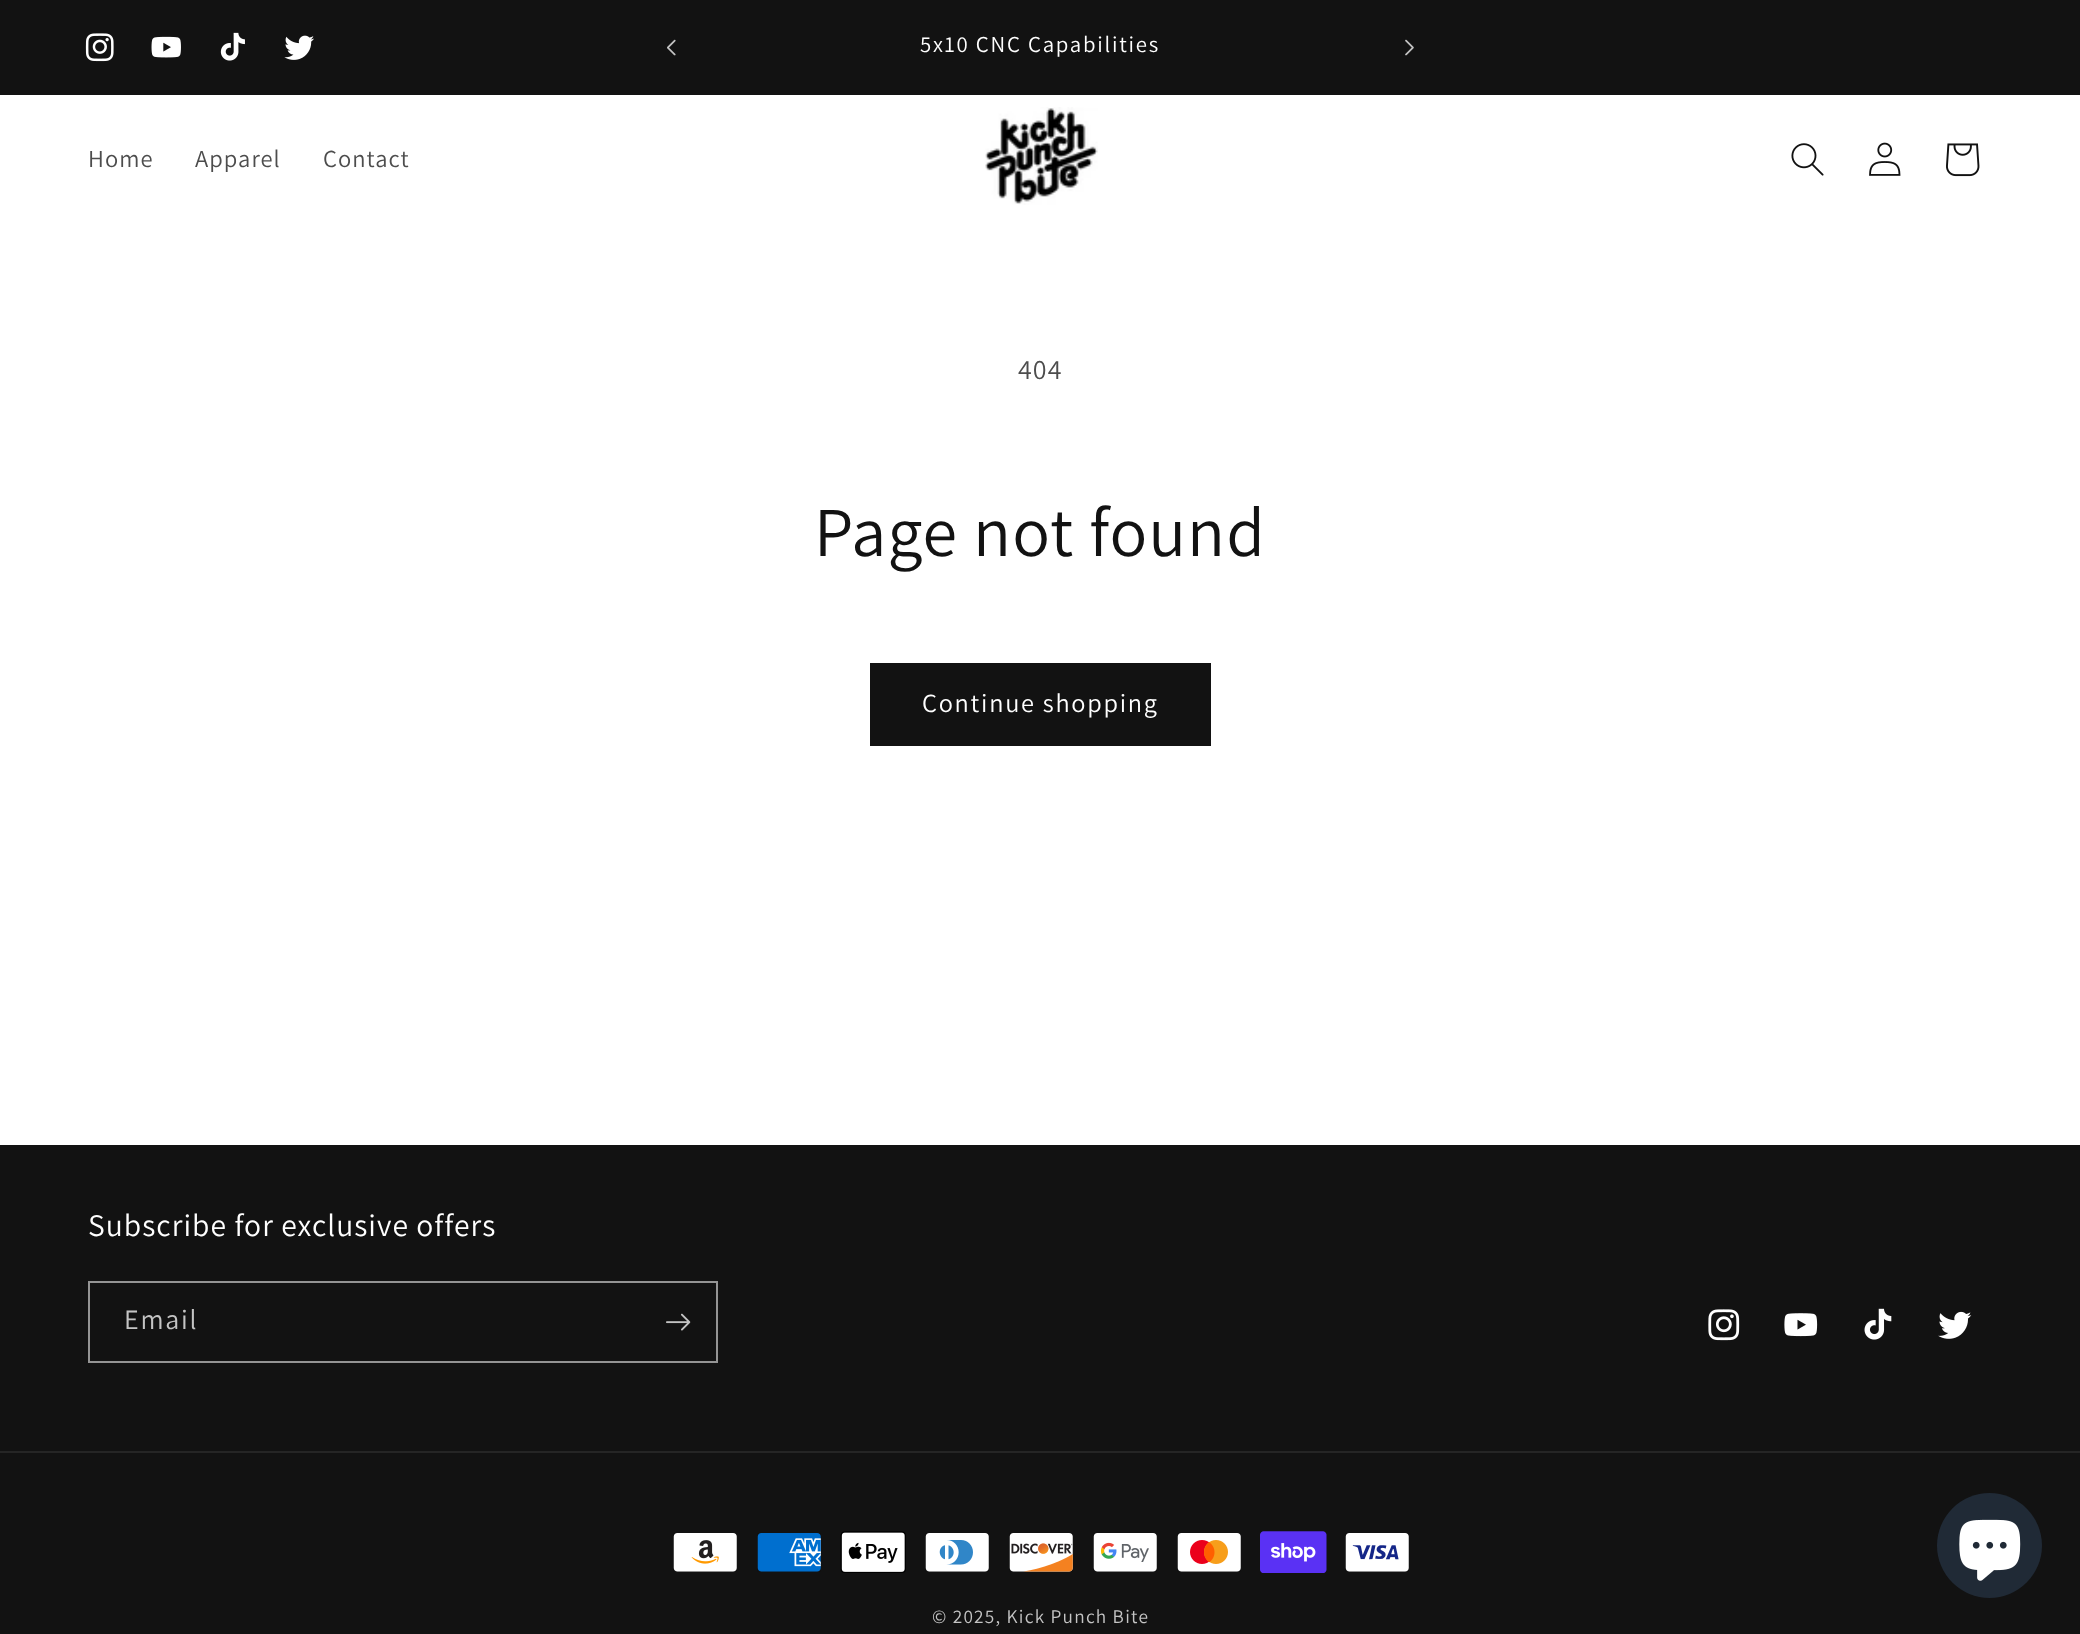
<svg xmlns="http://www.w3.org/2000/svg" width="2080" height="1634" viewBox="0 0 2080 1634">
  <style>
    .t1 { font: 22.75px Assistant; letter-spacing: 1.75px; fill: #fff; }
    .t2 { font: 24.5px Assistant; letter-spacing: 1.05px; fill: #4d4d4d; }
    .t3 { font: 28px Assistant; letter-spacing: 1.05px; fill: #4d4d4d; }
    .t4 { font: 70px Assistant; letter-spacing: 1.05px; fill: #121212; }
    .t5 { font: 26.25px Assistant; letter-spacing: 1.75px; fill: #fff; }
    .t6 { font: 31.5px Assistant; letter-spacing: 1.05px; fill: #fff; }
    .t7 { font: 28px Assistant; letter-spacing: 1.75px; fill: #c4c4c4; }
    .t8 { font: 19.25px Assistant; letter-spacing: 1.25px; fill: #c4c4c4; }
  </style>
  <rect width="100%" height="100%" fill="#fff"/>
  <rect x="0" y="0" width="2080" height="95" fill="#121212"/>
  <image x="85" y="33" width="29" height="29" href="images/1.png"/>
  <image x="151" y="36" width="30" height="22" href="images/2.png"/>
  <image x="220" y="32" width="25" height="29" href="images/3.png"/>
  <image x="284" y="35" width="30" height="25" href="images/4.png"/>
  <image x="667" y="39" width="9" height="17" href="images/5.png"/>
  <text x="920" y="52" class="t1">5x10 CNC Capabilities</text>
  <image x="1405" y="39" width="9" height="17" href="images/6.png"/>
  <text x="88" y="167" class="t2">Home</text>
  <text x="195" y="167" class="t2">Apparel</text>
  <text x="323" y="167" class="t2">Contact</text>
  <image x="985" y="107" width="113" height="98" href="images/7.png"/>
  <image x="1791" y="143" width="33" height="33" href="images/8.png"/>
  <image x="1869" y="142" width="32" height="34" href="images/9.png"/>
  <image x="1946" y="143" width="34" height="34" href="images/10.png"/>
  <text x="1018" y="379" class="t3">404</text>
  <text x="814" y="556" class="t4">Page not found</text>
  <rect x="870" y="663" width="341" height="83" fill="#121212"/>
  <text x="922" y="712" class="t5">Continue shopping</text>
  <rect x="0" y="1145" width="2080" height="489" fill="#121212"/>
  <text x="88" y="1236" class="t6">Subscribe for exclusive offers</text>
  <rect x="89" y="1282" width="628" height="80" fill="none" stroke="#949494" stroke-width="2"/>
  <text x="124" y="1329" class="t7">Email</text>
  <image x="666" y="1313" width="25" height="18" href="images/11.png"/>
  <image x="1708" y="1309" width="32" height="32" href="images/12.png"/>
  <image x="1784" y="1313" width="34" height="24" href="images/13.png"/>
  <image x="1864" y="1308" width="28" height="32" href="images/14.png"/>
  <image x="1938" y="1311" width="34" height="28" href="images/15.png"/>
  <rect x="0" y="1451" width="2080" height="2" fill="#252525"/>
  <image x="673" y="1533" width="64" height="39" href="images/16.png"/>
  <image x="757" y="1533" width="64" height="39" href="images/17.png"/>
  <image x="840" y="1531" width="66" height="42" href="images/18.png"/>
  <image x="925" y="1533" width="64" height="39" href="images/19.png"/>
  <image x="1009" y="1533" width="64" height="39" href="images/20.png"/>
  <image x="1093" y="1533" width="64" height="39" href="images/21.png"/>
  <image x="1177" y="1533" width="64" height="39" href="images/22.png"/>
  <image x="1260" y="1531" width="67" height="42" href="images/23.png"/>
  <image x="1345" y="1533" width="64" height="39" href="images/24.png"/>
  <text x="932" y="1623" class="t8">© 2025, Kick Punch Bite</text>
  <circle cx="1989.5" cy="1545.5" r="52.5" fill="#202a36"/>
  <image x="1959" y="1519" width="62" height="62" href="images/25.png"/>
</svg>
